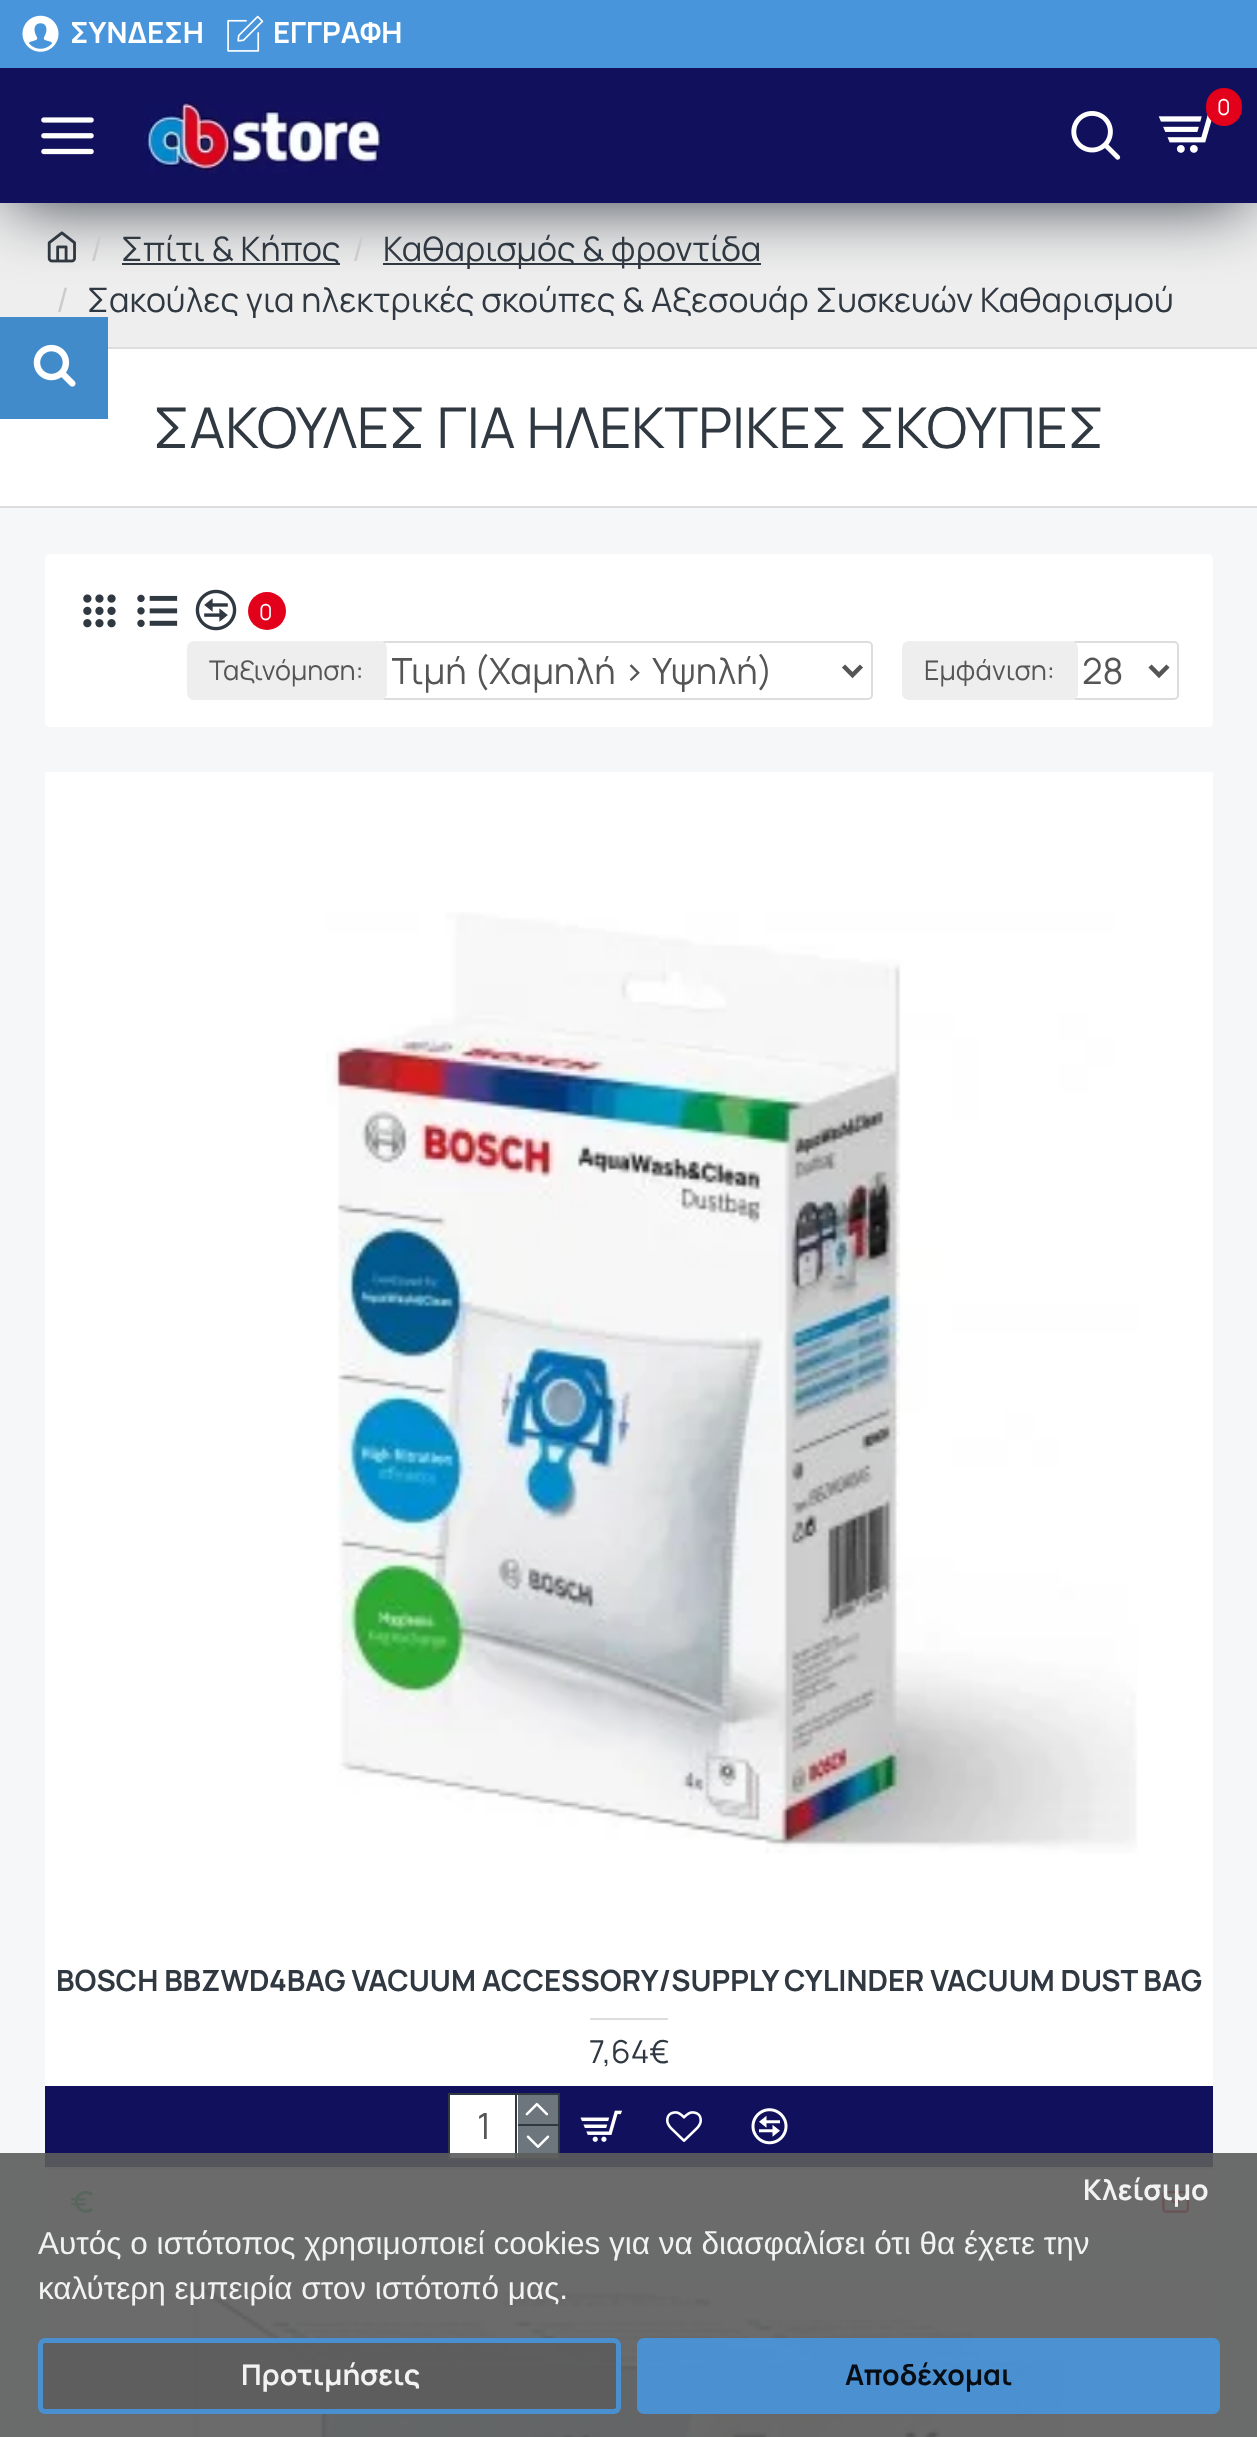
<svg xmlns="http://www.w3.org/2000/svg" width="1257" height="2437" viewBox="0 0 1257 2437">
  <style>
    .t1 { font: 33.75px Manrope; fill: #303841; }
    .t2 { font: bold 29.25px Manrope; fill: #fff; }
    .t3 { font: 22px Manrope; fill: #fff; }
    .t4 { font: 33.75px Manrope; fill: #ccc; }
    .t5 { font: 56.25px Manrope; fill: #303841; }
    .t6 { font: 27px Manrope; fill: #555; }
    .t7 { font: 36px Manrope; fill: #555; }
    .t8 { font: bold 29.25px Manrope; fill: #303841; }
    .t9 { font: 31.5px Manrope; fill: #303841; }
    .t10 { font: bold 28.5px Manrope; fill: #f2f2f2; }
    .t11 { font: bold 28.5px Manrope; fill: #070d13; }
    .t12 { font: 31.5px Liberation Sans; fill: #f2f2f2; }
  </style>
  <defs>
    <clipPath id="clip1"><rect x="392" y="644" width="443" height="54"/></clipPath>
  </defs>
  <rect width="100%" height="100%" fill="#f5f7f8"/>
  <rect x="0" y="203" width="1257" height="144" fill="#eee"/>
  <text x="87" y="312" class="t1">Σακούλες για ηλεκτρικές σκούπες &amp; Αξεσουάρ Συσκευών Καθαρισμού</text>
  <rect x="0" y="349" width="1257" height="157" fill="#fff"/>
  <rect x="0" y="317" width="108" height="102" fill="#428bca"/>
  <image x="33" y="344" width="43" height="43" href="images/1.png"/>
  <image x="47" y="231" width="29" height="32" href="images/8.png"/>
  <rect x="122" y="263" width="218" height="2" fill="#303841"/>
  <rect x="383" y="263" width="378" height="2" fill="#303841"/>
  <rect x="11" y="90" width="1236" height="113" fill="#303841" filter="blur(34px)"/>
  <rect x="0" y="0" width="1257" height="68" fill="#4895dc"/>
  <image x="22" y="15" width="37" height="37" href="images/2.png"/>
  <text x="70" y="43" class="t2">ΣΥΝΔΕΣΗ</text>
  <image x="227" y="15" width="37" height="37" href="images/3.png"/>
  <text x="273" y="43" class="t2">ΕΓΓΡΑΦΗ</text>
  <rect x="0" y="68" width="1257" height="135" fill="#10105d"/>
  <image x="143" y="102" width="241" height="72" href="images/4.png"/>
  <image x="1158" y="114" width="54" height="39" href="images/5.png"/>
  <rect x="1206" y="88" width="36" height="38" rx="18" fill="#e2001a"/>
  <text x="1217" y="115" class="t3">0</text>
  <image x="41" y="117" width="53" height="38" href="images/6.png"/>
  <image x="1071" y="111" width="50" height="49" href="images/7.png"/>
  <rect x="108" y="347" width="1149" height="2" fill="#ddd"/>
  <text x="90" y="261" class="t4">/</text>
  <text x="121" y="261" class="t1">Σπίτι &amp; Κήπος</text>
  <text x="352" y="261" class="t4">/</text>
  <text x="383" y="261" class="t1">Καθαρισμός &amp; φροντίδα</text>
  <text x="56" y="312" class="t4">/</text>
  <rect x="0" y="506" width="1257" height="2" fill="#ddd"/>
  <text x="153" y="448" class="t5">ΣΑΚΟΥΛΕΣ ΓΙΑ ΗΛΕΚΤΡΙΚΕΣ ΣΚΟΥΠΕΣ</text>
  <rect x="45" y="554" width="1168" height="173" rx="5" fill="#fff"/>
  <image x="83" y="594" width="33" height="34" href="images/9.png"/>
  <image x="137" y="594" width="41" height="34" href="images/10.png"/>
  <image x="195" y="589" width="42" height="42" href="images/11.png"/>
  <circle cx="267" cy="611" r="19" fill="#e2001a"/>
  <text x="259" y="620" class="t3">0</text>
  <rect x="381" y="642" width="491" height="57" rx="4" fill="none" stroke="#ddd" stroke-width="2"/>
  <rect x="187" y="641" width="200" height="59" rx="7" fill="#eee"/>
  <text x="209" y="680" class="t6">Ταξινόμηση:</text>
  <path d="M843.5 666L852.5 675L861.5 666" fill="none" stroke="#555" stroke-width="4.5"/>
  <g clip-path="url(#clip1)">
    <text x="391" y="684" class="t7">Τιμή (Χαμηλή &gt; Υψηλή)</text>
  </g>
  <rect x="1072" y="642" width="106" height="57" rx="4" fill="none" stroke="#ddd" stroke-width="2"/>
  <rect x="902" y="641" width="176" height="59" rx="7" fill="#eee"/>
  <text x="924" y="680" class="t6">Εμφάνιση:</text>
  <path d="M1150 666L1159 675L1168 666" fill="none" stroke="#555" stroke-width="4.5"/>
  <text x="1082" y="684" class="t7">28</text>
  <rect x="45" y="772" width="1168" height="1462" fill="#fff"/>
  <image x="326" y="912" width="812" height="942" href="images/12.png"/>
  <text x="56" y="1991" class="t8">BOSCH BBZWD4BAG VACUUM ACCESSORY/SUPPLY CYLINDER VACUUM DUST BAG</text>
  <rect x="590" y="2018" width="78" height="2" fill="#ddd"/>
  <text x="589" y="2063" class="t9">7,64€</text>
  <rect x="45" y="2086" width="1168" height="81" fill="#10105d"/>
  <rect x="449" y="2094" width="110" height="65" fill="none" stroke="#303841" stroke-width="2"/>
  <rect x="450" y="2095" width="68" height="63" fill="#fff"/>
  <text x="477" y="2139" class="t7">1</text>
  <rect x="515" y="2095" width="2" height="63" fill="#303841"/>
  <rect x="518" y="2095" width="40" height="29" fill="#6d767d"/>
  <rect x="518" y="2124" width="40" height="2" fill="#303841"/>
  <image x="525" y="2102" width="24" height="14" href="images/13.png"/>
  <rect x="518" y="2126" width="40" height="32" fill="#6d767d"/>
  <image x="526" y="2135" width="24" height="13" href="images/14.png"/>
  <image x="580" y="2110" width="42" height="32" href="images/15.png"/>
  <image x="666" y="2111" width="36" height="31" href="images/16.png"/>
  <image x="751" y="2108" width="37" height="37" href="images/17.png"/>
  <rect x="45" y="2167" width="1168" height="2" fill="#ddd"/>
  <image x="71" y="2190" width="22" height="23" href="images/18.png"/>
  <image x="1162" y="2190" width="28" height="23" href="images/19.png"/>
  <rect x="45" y="2279" width="1168" height="158" fill="#fff"/>
  <image x="191" y="2280" width="882" height="157" href="images/20.png"/>
  <rect x="0" y="2153" width="1257" height="284" fill="#5c5c5ce8"/>
  <text x="1083" y="2200" class="t10">Κλείσιμο</text>
  <rect x="38" y="2338" width="583" height="76" rx="7" fill="#5c5c5ce8"/>
  <rect x="40.5" y="2340.5" width="578" height="71" rx="4.5" fill="none" stroke="#4895dce8" stroke-width="5"/>
  <text x="241" y="2385" class="t10">Προτιμήσεις</text>
  <rect x="637" y="2338" width="583" height="76" rx="7" fill="#4895dce8"/>
  <text x="845" y="2385" class="t11">Αποδέχομαι</text>
  <text x="38" y="2254" class="t12">Αυτός ο ιστότοπος χρησιμοποιεί cookies για να διασφαλίσει ότι θα έχετε την</text>
  <text x="38" y="2299" class="t12">καλύτερη εμπειρία στον ιστότοπό μας.</text>
</svg>
